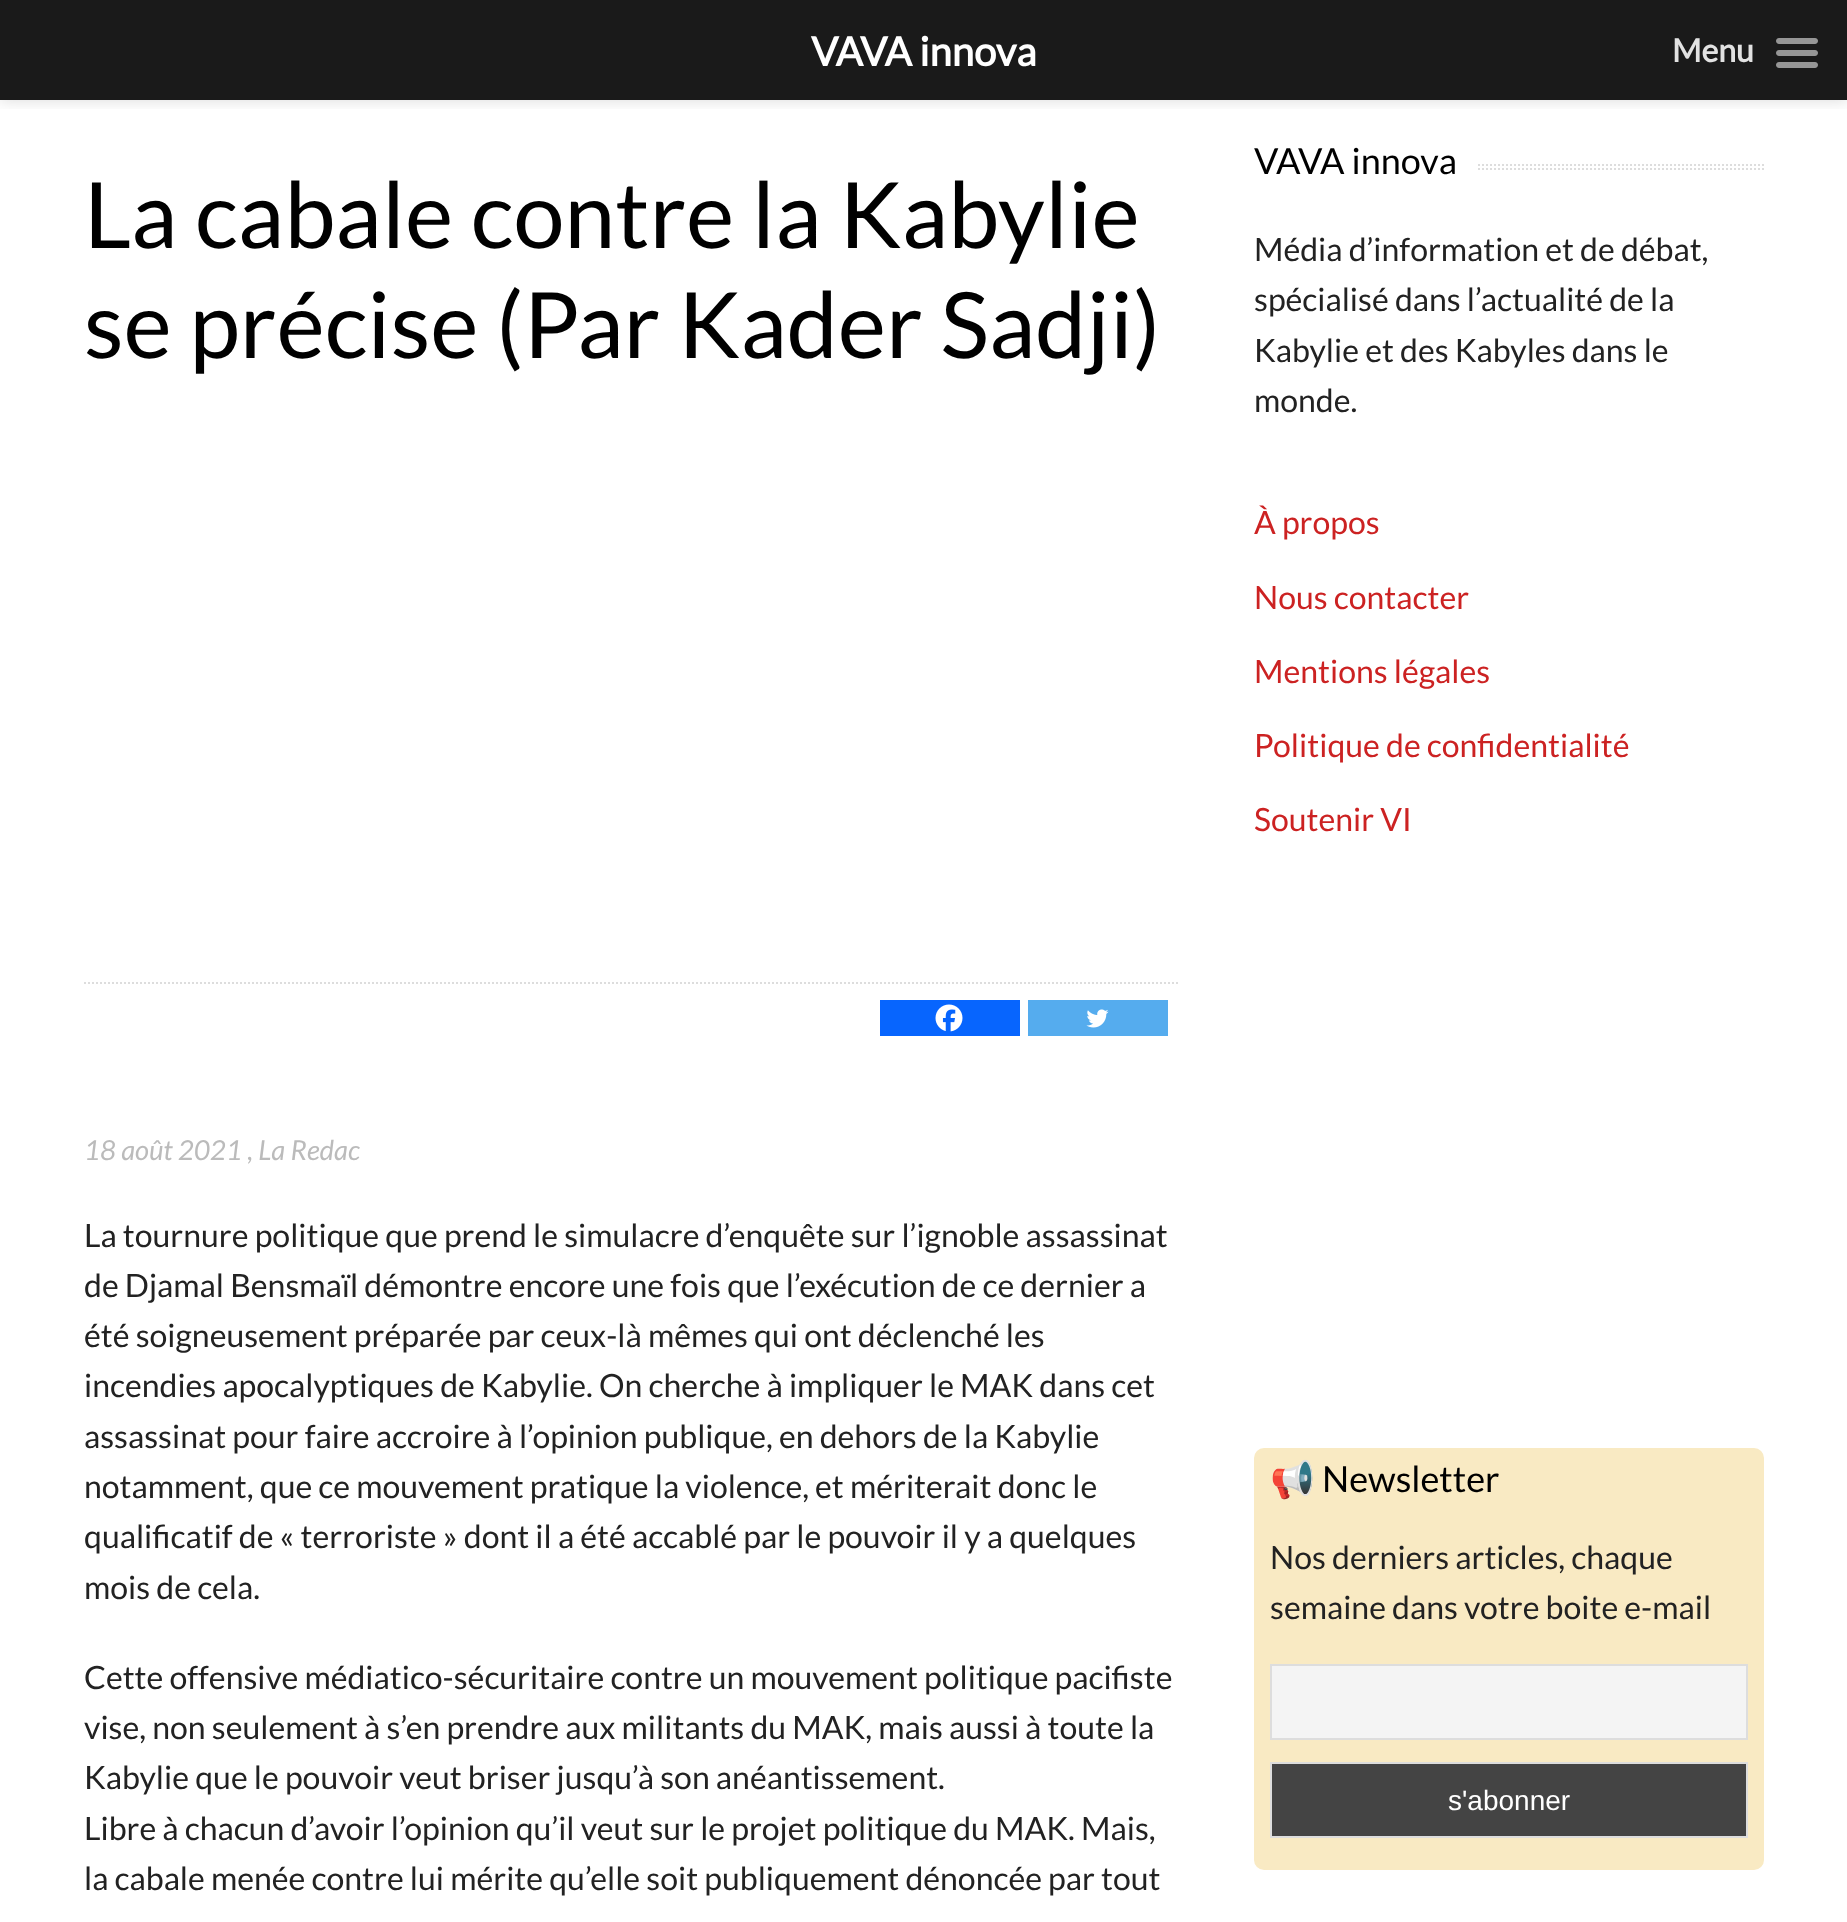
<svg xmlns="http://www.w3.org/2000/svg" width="1847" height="1922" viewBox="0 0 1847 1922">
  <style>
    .t1 { font: bold 40px Lato; fill: #fff; }
    .t2 { font: bold 32px Lato; fill: #e2e2e2; }
    .t3 { font: 91.5px Lato; fill: #000; }
    .t4 { font: italic 27.5px Lato; fill: #bbb; }
    .t5 { font: 32px Lato; fill: #222; }
    .t6 { font: 36px Lato; fill: #000; }
    .t7 { font: 32px Lato; fill: #c22; }
    .t8 { font: 36px Noto Color Emoji; fill: #000; }
    .t9 { font: 28px Liberation Sans; fill: #fff; }
  </style>
  <defs>
    <clipPath id="clip1"><rect x="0" y="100" width="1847" height="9"/></clipPath>
  </defs>
  <rect width="100%" height="100%" fill="#fff"/>
  <rect x="0" y="0" width="1847" height="100" fill="#1a1a1a"/>
  <g clip-path="url(#clip1)">
    <rect x="0" y="0" width="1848" height="100" fill="#00000026" filter="blur(8px)"/>
  </g>
  <text x="811" y="66" class="t1">VAVA innova</text>
  <text x="1672" y="62" class="t2">Menu</text>
  <image x="1776" y="38" width="42" height="30" href="images/1.png"/>
  <path d="M84 983H1180" fill="none" stroke="#ddd" stroke-width="2" stroke-dasharray="2 2"/>
  <text x="84" y="248" class="t3">La cabale contre la Kabylie</text>
  <text x="84" y="358" class="t3">se précise (Par Kader Sadji)</text>
  <rect x="880" y="1000" width="140" height="36" fill="#0765fe"/>
  <image x="935" y="1004" width="28" height="28" href="images/2.png"/>
  <rect x="1028" y="1000" width="140" height="36" fill="#55acee"/>
  <image x="1086" y="1009" width="23" height="19" href="images/3.png"/>
  <text x="84" y="1160" class="t4">18 août 2021 , La Redac</text>
  <text x="84" y="1247" class="t5">La tournure politique que prend le simulacre d’enquête sur l’ignoble assassinat</text>
  <text x="84" y="1297" class="t5">de Djamal Bensmaïl démontre encore une fois que l’exécution de ce dernier a</text>
  <text x="84" y="1347" class="t5">été soigneusement préparée par ceux-là mêmes qui ont déclenché les</text>
  <text x="84" y="1397" class="t5">incendies apocalyptiques de Kabylie. On cherche à impliquer le MAK dans cet</text>
  <text x="84" y="1448" class="t5">assassinat pour faire accroire à l’opinion publique, en dehors de la Kabylie</text>
  <text x="84" y="1498" class="t5">notamment, que ce mouvement pratique la violence, et mériterait donc le</text>
  <text x="84" y="1548" class="t5">qualificatif de « terroriste » dont il a été accablé par le pouvoir il y a quelques</text>
  <text x="84" y="1599" class="t5">mois de cela.</text>
  <text x="84" y="1689" class="t5">Cette offensive médiatico-sécuritaire contre un mouvement politique pacifiste</text>
  <text x="84" y="1739" class="t5">vise, non seulement à s’en prendre aux militants du MAK, mais aussi à toute la</text>
  <text x="84" y="1789" class="t5">Kabylie que le pouvoir veut briser jusqu’à son anéantissement.</text>
  <text x="84" y="1840" class="t5">Libre à chacun d’avoir l’opinion qu’il veut sur le projet politique du MAK. Mais,</text>
  <text x="84" y="1890" class="t5">la cabale menée contre lui mérite qu’elle soit publiquement dénoncée par tout</text>
  <path d="M1254 165H1764" fill="none" stroke="#ddd" stroke-width="2" stroke-dasharray="2 2"/>
  <path d="M1254 169H1764" fill="none" stroke="#ddd" stroke-width="2" stroke-dasharray="2 2"/>
  <rect x="1254" y="164" width="222" height="6" fill="#fff"/>
  <text x="1254" y="174" class="t6">VAVA innova</text>
  <text x="1254" y="261" class="t5">Média d’information et de débat,</text>
  <text x="1254" y="311" class="t5">spécialisé dans l’actualité de la</text>
  <text x="1254" y="362" class="t5">Kabylie et des Kabyles dans le</text>
  <text x="1254" y="412" class="t5">monde.</text>
  <text x="1254" y="534" class="t7">À propos</text>
  <text x="1254" y="609" class="t7">Nous contacter</text>
  <text x="1254" y="683" class="t7">Mentions légales</text>
  <text x="1254" y="757" class="t7">Politique de confidentialité</text>
  <text x="1254" y="831" class="t7">Soutenir VI</text>
  <rect x="1254" y="1448" width="510" height="422" rx="10" fill="#f9eac3"/>
  <text x="1270" y="1492" class="t8">📢</text>
  <text x="1322" y="1492" class="t6">Newsletter</text>
  <text x="1270" y="1569" class="t5">Nos derniers articles, chaque</text>
  <text x="1270" y="1619" class="t5">semaine dans votre boite e-mail</text>
  <rect x="1271" y="1665" width="476" height="74" fill="#f4f4f4" stroke="#ddd" stroke-width="2"/>
  <rect x="1271" y="1763" width="476" height="74" fill="#444" stroke="#ddd" stroke-width="2"/>
  <text x="1448" y="1810" class="t9">s'abonner</text>
</svg>
